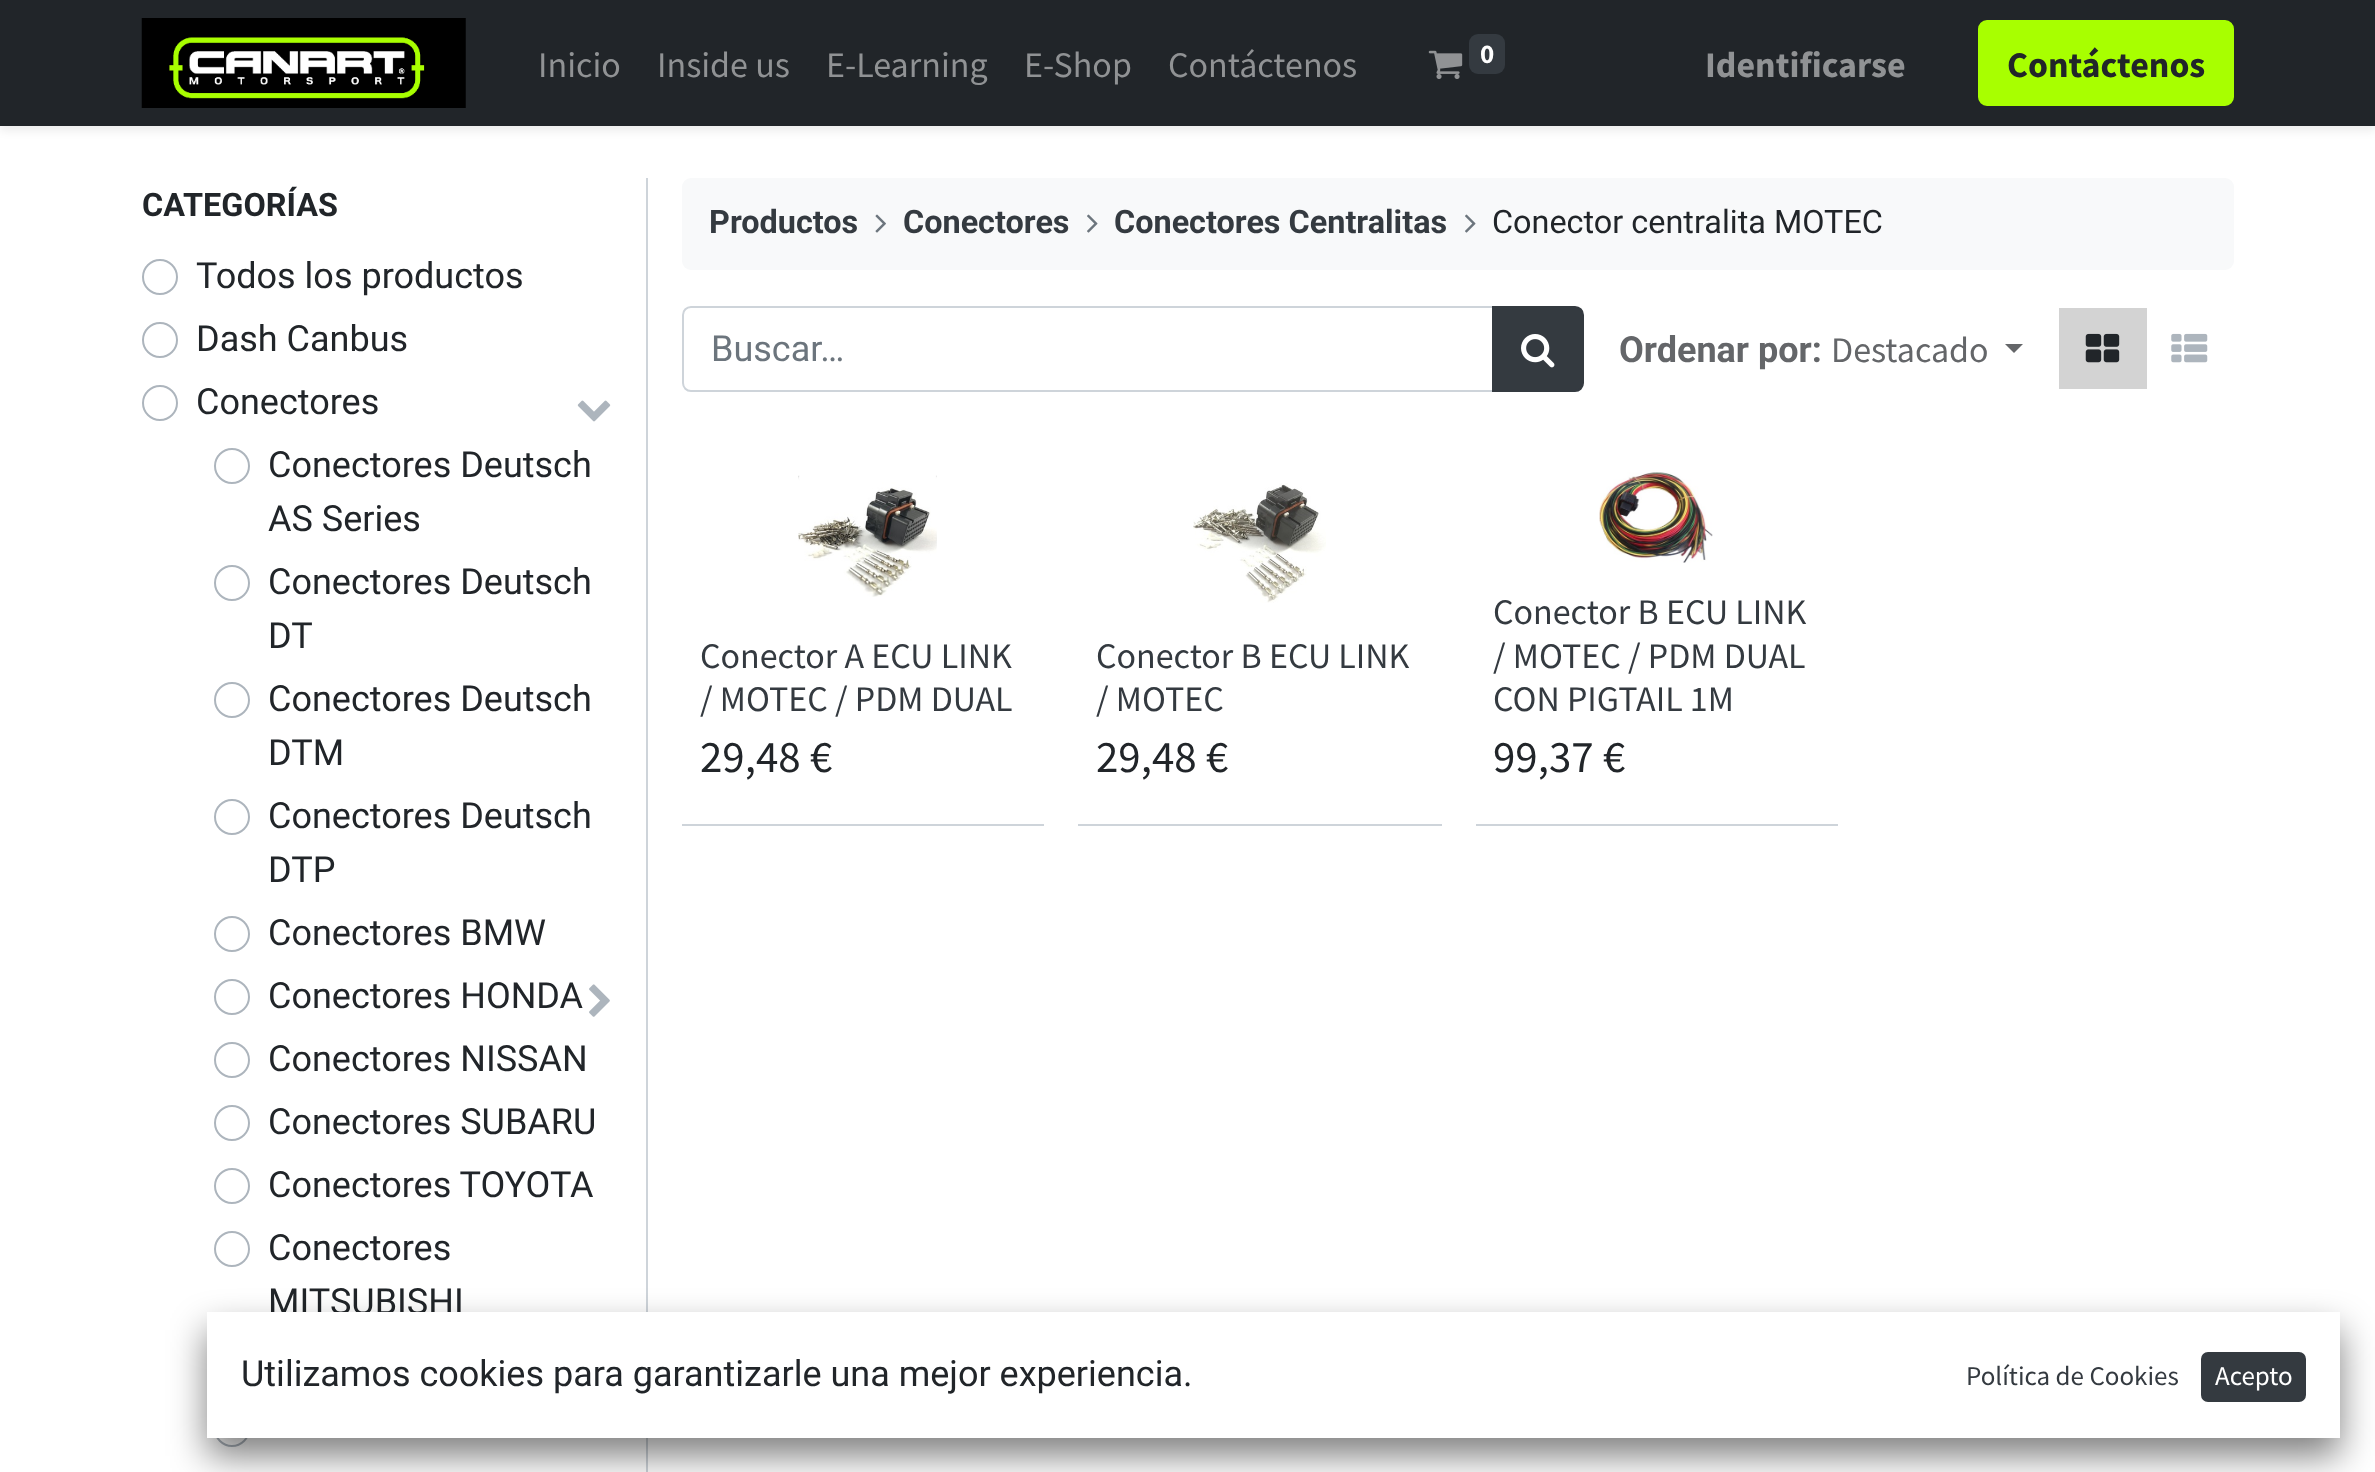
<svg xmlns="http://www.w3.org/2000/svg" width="2375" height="1472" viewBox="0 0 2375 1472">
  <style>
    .t1 { font: 36px Source Sans Pro; fill: #909294; }
    .t2 { font: bold 27px Source Sans Pro; fill: #fff; }
    .t3 { font: bold 36px Source Sans Pro; fill: #909294; }
    .t4 { font: bold 36px Source Sans Pro; fill: #212529; }
    .t5 { font: bold 32.4px Roboto; fill: #212529; }
    .t6 { font: 36px Roboto; fill: #212529; }
    .t7 { font: bold 32.4px Roboto; fill: #343a40; }
    .t8 { font: 32.4px Roboto; fill: #212529; }
    .t9 { font: 36px Roboto; fill: #6c757d; }
    .t10 { font: bold 36px Roboto; fill: #646669; }
    .t11 { font: 36px Source Sans Pro; fill: #646669; }
    .t12 { font: 36px Source Sans Pro; fill: #343a40; }
    .t13 { font: 45px Source Sans Pro; fill: #212529; }
    .t14 { font: 27px Source Sans Pro; fill: #343a40; }
    .t15 { font: 27px Source Sans Pro; fill: #fff; }
  </style>
  <rect width="100%" height="100%" fill="#fff"/>
  <rect x="0" y="5" width="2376" height="126" fill="#00000012" filter="blur(4.5px)"/>
  <rect x="0" y="0" width="2375" height="126" fill="#212529"/>
  <image x="141" y="18" width="325" height="90" href="images/1.png"/>
  <text x="538" y="77" class="t1">Inicio</text>
  <text x="657" y="77" class="t1">Inside us</text>
  <text x="826" y="77" class="t1">E-Learning</text>
  <text x="1024" y="77" class="t1">E-Shop</text>
  <text x="1168" y="77" class="t1">Contáctenos</text>
  <image x="1428" y="50" width="35" height="29" href="images/2.png"/>
  <rect x="1469" y="34" width="36" height="40" rx="9" fill="#343a40"/>
  <text x="1480" y="63" class="t2">0</text>
  <text x="1705" y="77" class="t3">Identificarse</text>
  <rect x="1979" y="21" width="254" height="84" rx="8" fill="#a8ff00" stroke="#a8ff00" stroke-width="2"/>
  <text x="2007" y="77" class="t4">Contáctenos</text>
  <rect x="646" y="178" width="2" height="1294" fill="#ced4da"/>
  <text x="142" y="216" class="t5">CATEGORÍAS</text>
  <circle cx="160" cy="277" r="17" fill="none" stroke="#adb5bd" stroke-width="2"/>
  <text x="196" y="288" class="t6">Todos los productos</text>
  <circle cx="160" cy="340" r="17" fill="none" stroke="#adb5bd" stroke-width="2"/>
  <text x="196" y="351" class="t6">Dash Canbus</text>
  <circle cx="160" cy="403" r="17" fill="none" stroke="#adb5bd" stroke-width="2"/>
  <text x="196" y="414" class="t6">Conectores</text>
  <image x="577" y="400" width="34" height="22" href="images/3.png"/>
  <circle cx="232" cy="466" r="17" fill="none" stroke="#adb5bd" stroke-width="2"/>
  <text x="268" y="477" class="t6">Conectores Deutsch</text>
  <text x="268" y="531" class="t6">AS Series</text>
  <circle cx="232" cy="583" r="17" fill="none" stroke="#adb5bd" stroke-width="2"/>
  <text x="268" y="594" class="t6">Conectores Deutsch</text>
  <text x="268" y="648" class="t6">DT</text>
  <circle cx="232" cy="700" r="17" fill="none" stroke="#adb5bd" stroke-width="2"/>
  <text x="268" y="711" class="t6">Conectores Deutsch</text>
  <text x="268" y="765" class="t6">DTM</text>
  <circle cx="232" cy="817" r="17" fill="none" stroke="#adb5bd" stroke-width="2"/>
  <text x="268" y="828" class="t6">Conectores Deutsch</text>
  <text x="268" y="882" class="t6">DTP</text>
  <circle cx="232" cy="934" r="17" fill="none" stroke="#adb5bd" stroke-width="2"/>
  <text x="268" y="945" class="t6">Conectores BMW</text>
  <circle cx="232" cy="997" r="17" fill="none" stroke="#adb5bd" stroke-width="2"/>
  <text x="268" y="1008" class="t6">Conectores HONDA</text>
  <image x="589" y="984" width="21" height="33" href="images/4.png"/>
  <circle cx="232" cy="1060" r="17" fill="none" stroke="#adb5bd" stroke-width="2"/>
  <text x="268" y="1071" class="t6">Conectores NISSAN</text>
  <circle cx="232" cy="1123" r="17" fill="none" stroke="#adb5bd" stroke-width="2"/>
  <text x="268" y="1134" class="t6">Conectores SUBARU</text>
  <circle cx="232" cy="1186" r="17" fill="none" stroke="#adb5bd" stroke-width="2"/>
  <text x="268" y="1197" class="t6">Conectores TOYOTA</text>
  <circle cx="232" cy="1249" r="17" fill="none" stroke="#adb5bd" stroke-width="2"/>
  <text x="268" y="1260" class="t6">Conectores</text>
  <text x="268" y="1314" class="t6">MITSUBISHI</text>
  <circle cx="232" cy="1429" r="17" fill="none" stroke="#adb5bd" stroke-width="2"/>
  <rect x="682" y="178" width="1552" height="92" rx="9" fill="#f8f9fa"/>
  <text x="709" y="233" class="t7">Productos</text>
  <image x="875" y="214" width="11" height="19" href="images/5.png"/>
  <text x="903" y="233" class="t7">Conectores</text>
  <image x="1087" y="214" width="11" height="19" href="images/6.png"/>
  <text x="1114" y="233" class="t7">Conectores Centralitas</text>
  <image x="1465" y="214" width="11" height="19" href="images/6.png"/>
  <text x="1492" y="233" class="t8">Conector centralita MOTEC</text>
  <path d="M691 307H1493V391H691C686.5 391 683 387.5 683 383V315C683 310.5 686.5 307 691 307Z" fill="none" stroke="#ced4da" stroke-width="2"/>
  <text x="711" y="361" class="t9">Buscar…</text>
  <path d="M1493 307H1575C1579.5 307 1583 310.5 1583 315V383C1583 387.5 1579.5 391 1575 391H1493Z" fill="#343a40" stroke="#343a40" stroke-width="2"/>
  <image x="1521" y="334" width="34" height="34" href="images/7.png"/>
  <text x="1619" y="362" class="t10">Ordenar por:</text>
  <text x="1831" y="362" class="t11">Destacado</text>
  <path d="M2005 344H2023L2014 353Z" fill="#646669"/>
  <rect x="2059" y="308" width="88" height="81" fill="#d3d3d3"/>
  <image x="2085" y="333" width="35" height="30" href="images/8.png"/>
  <image x="2171" y="333" width="37" height="30" href="images/9.png"/>
  <rect x="682" y="824" width="362" height="2" fill="#ced4da"/>
  <image x="798" y="475" width="139" height="122" href="images/10.png"/>
  <text x="700" y="668" class="t12">Conector A ECU LINK</text>
  <text x="700" y="711" class="t12">/ MOTEC / PDM DUAL</text>
  <text x="700" y="772" class="t13">29,48 €</text>
  <rect x="1078" y="824" width="364" height="2" fill="#ced4da"/>
  <image x="1193" y="483" width="133" height="120" href="images/11.png"/>
  <text x="1096" y="668" class="t12">Conector B ECU LINK</text>
  <text x="1096" y="711" class="t12">/ MOTEC</text>
  <text x="1096" y="772" class="t13">29,48 €</text>
  <rect x="1476" y="824" width="362" height="2" fill="#ced4da"/>
  <image x="1599" y="472" width="114" height="91" href="images/12.png"/>
  <text x="1493" y="624" class="t12">Conector B ECU LINK</text>
  <text x="1493" y="668" class="t12">/ MOTEC / PDM DUAL</text>
  <text x="1493" y="711" class="t12">CON PIGTAIL 1M</text>
  <text x="1493" y="772" class="t13">99,37 €</text>
  <rect x="207" y="1330" width="2133" height="126" fill="#00000080" filter="blur(18px)"/>
  <rect x="207" y="1312" width="2133" height="126" fill="#fff"/>
  <text x="241" y="1386" class="t6">Utilizamos cookies para garantizarle una mejor experiencia.</text>
  <text x="1966" y="1385" class="t14">Política de Cookies</text>
  <rect x="2202" y="1353" width="103" height="48" rx="6" fill="#343a40" stroke="#343a40" stroke-width="2"/>
  <text x="2215" y="1385" class="t15">Acepto</text>
</svg>
